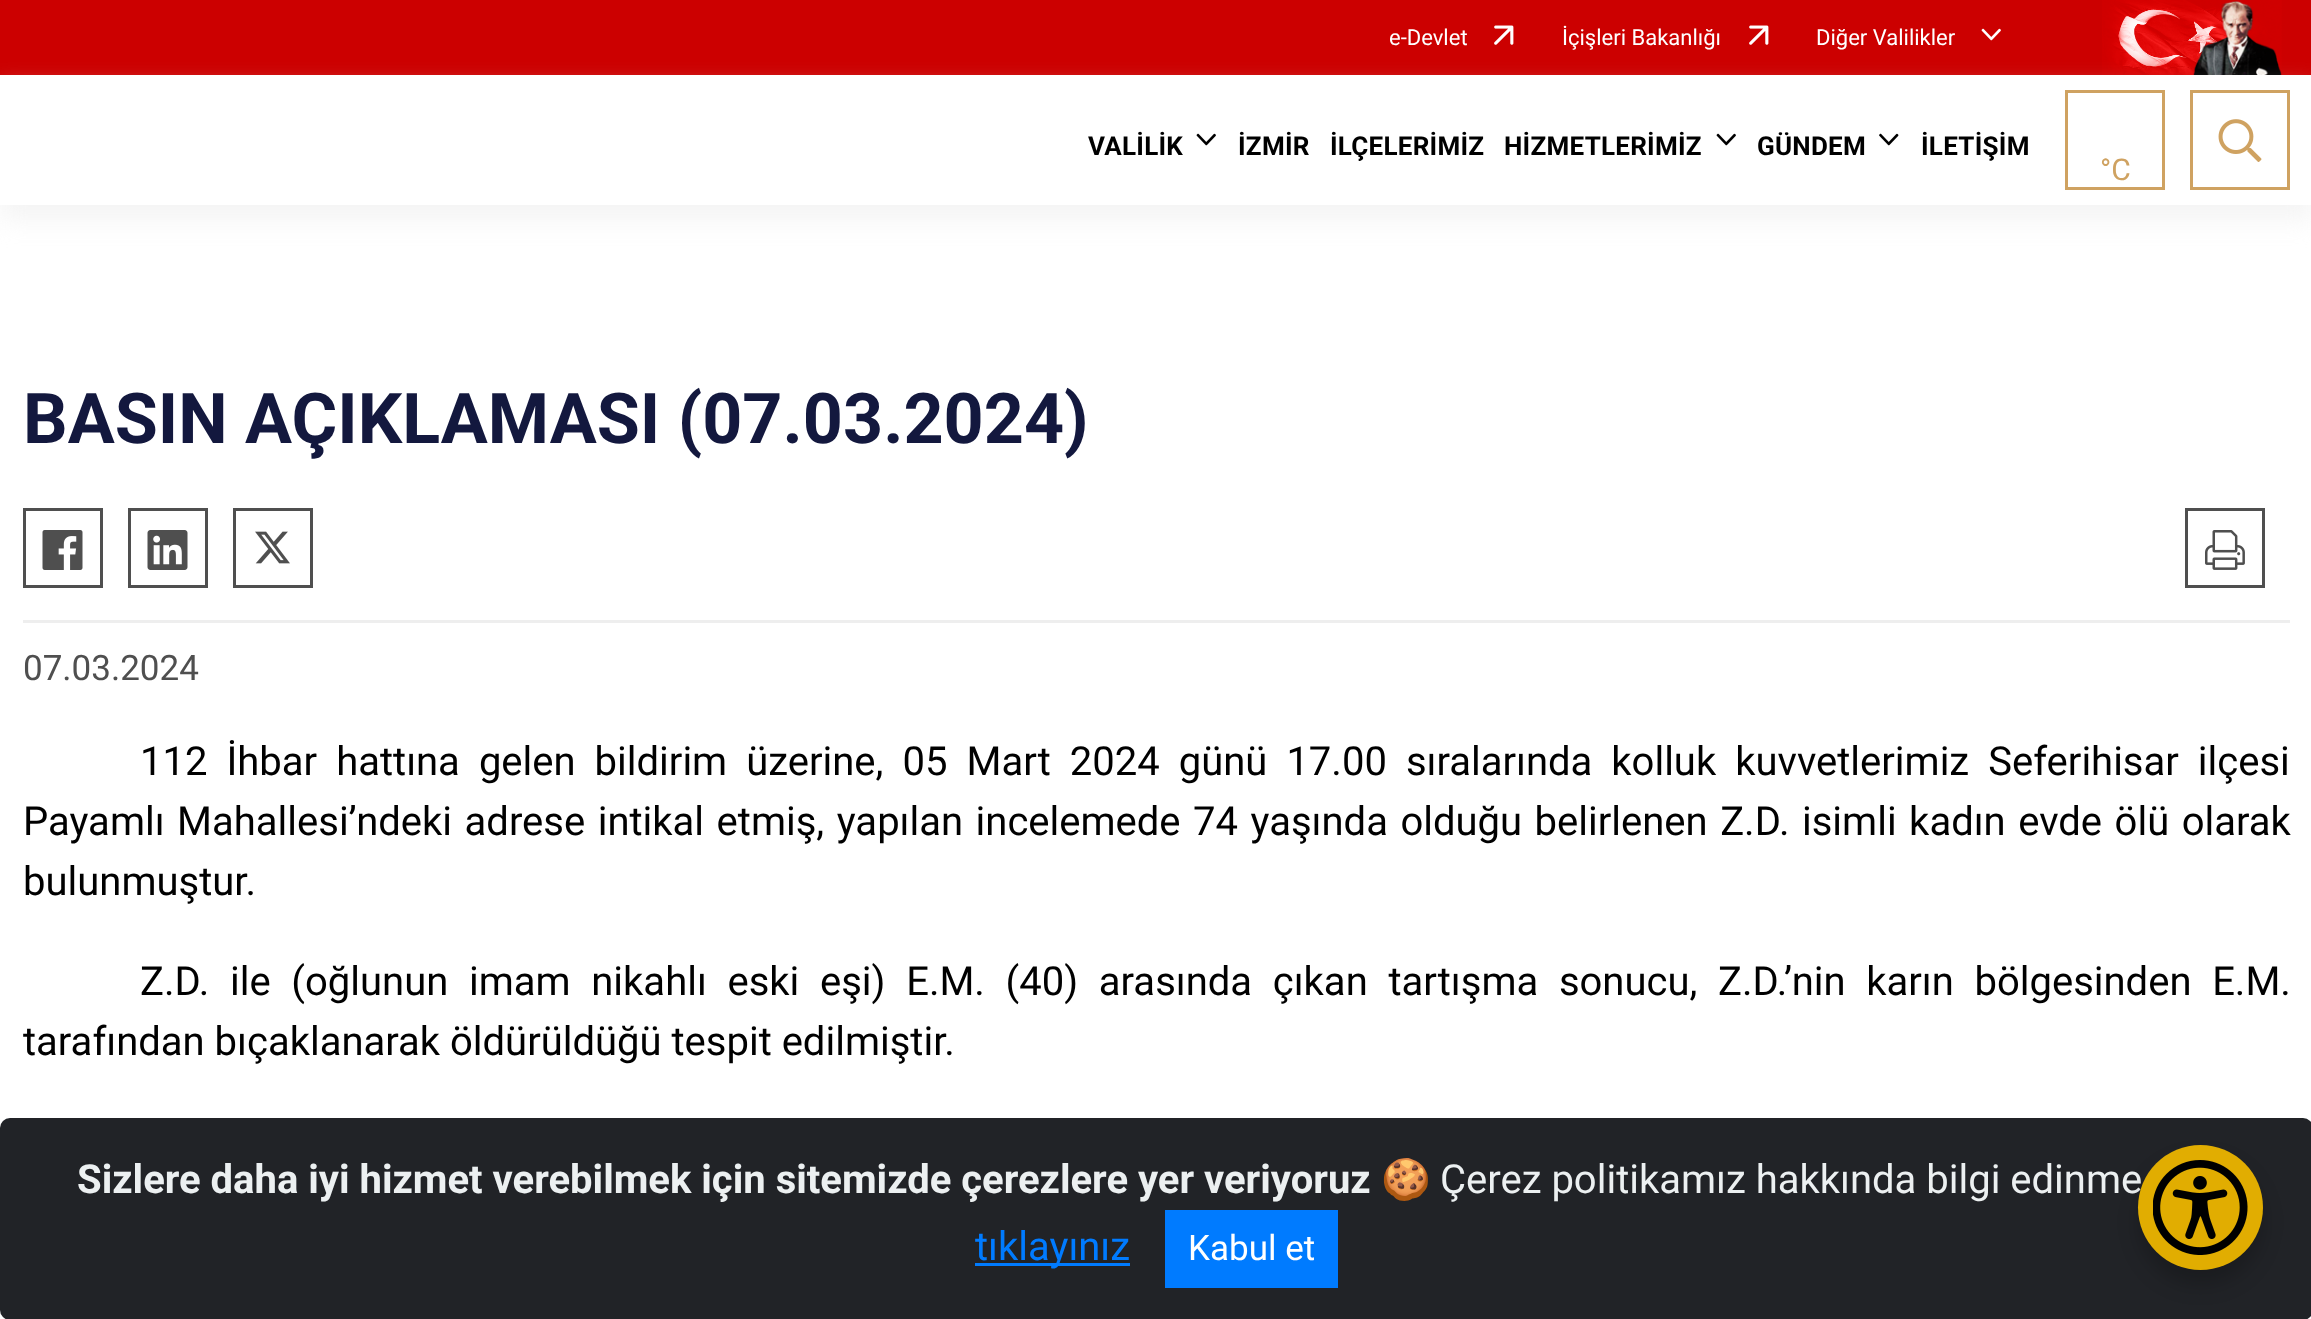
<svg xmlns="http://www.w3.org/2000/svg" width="2311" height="1319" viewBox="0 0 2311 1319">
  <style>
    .t1 { font: 22px Roboto; fill: #fff; }
    .t2 { font: bold 26px Roboto; letter-spacing: 0.25px; fill: #000; }
    .t3 { font: 30px Roboto; fill: #cfa261; }
    .t4 { font: bold 70px Roboto; fill: #13183e; }
    .t5 { font: 35px Roboto; fill: #4f4f4f; }
    .t6 { font: 40px Roboto; fill: #000; }
    .t7 { font: bold 40px Roboto; fill: #ecf0f1; }
    .t8 { font: 40px Noto Color Emoji; fill: #ecf0f1; }
    .t9 { font: 40px Roboto; fill: #ecf0f1; }
    .t10 { font: 40px Roboto; fill: #007bff; }
    .t11 { font: 35px Roboto; fill: #fff; }
  </style>
  <defs>
    <clipPath id="clip1"><path d="M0 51H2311V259H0ZM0 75H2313V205H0Z" clip-rule="evenodd"/></clipPath>
  </defs>
  <rect width="100%" height="100%" fill="#fff"/>
  <rect x="0" y="0" width="2311" height="75" fill="#c00"/>
  <text x="1389" y="45" class="t1">e-Devlet</text>
  <image x="1494" y="25" width="20" height="20" href="images/1.png"/>
  <text x="1562" y="45" class="t1">İçişleri Bakanlığı</text>
  <image x="1749" y="25" width="20" height="20" href="images/1.png"/>
  <text x="1816" y="45" class="t1">Diğer Valilikler</text>
  <image x="1981" y="28" width="20" height="13" href="images/2.png"/>
  <image x="2102" y="0" width="180" height="75" href="images/3.png"/>
  <g clip-path="url(#clip1)">
    <rect x="0" y="90" width="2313" height="130" fill="#eeeeee9e" filter="blur(12.5px)"/>
  </g>
  <text x="1088" y="155" class="t2">VALİLİK</text>
  <image x="1196" y="133" width="20" height="13" href="images/4.png"/>
  <text x="1238" y="155" class="t2">İZMİR</text>
  <text x="1330" y="155" class="t2">İLÇELERİMİZ</text>
  <text x="1504" y="155" class="t2">HİZMETLERİMİZ</text>
  <image x="1716" y="133" width="20" height="13" href="images/4.png"/>
  <text x="1757" y="155" class="t2">GÜNDEM</text>
  <image x="1879" y="133" width="20" height="13" href="images/5.png"/>
  <text x="1921" y="155" class="t2">İLETİŞİM</text>
  <rect x="2066.5" y="91.5" width="97" height="97" fill="none" stroke="#cfa261" stroke-width="3"/>
  <text x="2100" y="180" class="t3">°C</text>
  <rect x="2191.5" y="91.5" width="97" height="97" fill="none" stroke="#cfa261" stroke-width="3"/>
  <image x="2218" y="119" width="44" height="43" href="images/6.png"/>
  <rect x="23" y="620" width="2267" height="3" fill="#eee"/>
  <text x="23" y="443" class="t4">BASIN AÇIKLAMASI (07.03.2024)</text>
  <rect x="24.5" y="509.5" width="77" height="77" fill="none" stroke="#4f4f4f" stroke-width="3"/>
  <image x="42" y="530" width="41" height="40" href="images/7.png"/>
  <rect x="129.5" y="509.5" width="77" height="77" fill="none" stroke="#4f4f4f" stroke-width="3"/>
  <image x="147" y="530" width="41" height="40" href="images/8.png"/>
  <rect x="234.5" y="509.5" width="77" height="77" fill="none" stroke="#4f4f4f" stroke-width="3"/>
  <image x="255" y="531" width="35" height="33" href="images/9.png"/>
  <rect x="2186.5" y="509.5" width="77" height="77" fill="none" stroke="#4f4f4f" stroke-width="3"/>
  <image x="2205" y="530" width="40" height="40" href="images/10.png"/>
  <text x="23" y="680" class="t5">07.03.2024</text>
  <text x="140" y="775" word-spacing="9.1" class="t6">112 İhbar hattına gelen bildirim üzerine, 05 Mart 2024 günü 17.00 sıralarında kolluk kuvvetlerimiz Seferihisar ilçesi</text>
  <text x="23" y="835" word-spacing="2.6" class="t6">Payamlı Mahallesi’ndeki adrese intikal etmiş, yapılan incelemede 74 yaşında olduğu belirlenen Z.D. isimli kadın evde ölü olarak</text>
  <text x="23" y="895" class="t6">bulunmuştur.</text>
  <text x="140" y="995" word-spacing="10.75" class="t6">Z.D. ile (oğlunun imam nikahlı eski eşi) E.M. (40) arasında çıkan tartışma sonucu, Z.D.’nin karın bölgesinden E.M.</text>
  <text x="23" y="1055" class="t6">tarafından bıçaklanarak öldürüldüğü tespit edilmiştir.</text>
  <rect x="0" y="1118" width="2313" height="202" rx="10" fill="#212327"/>
  <text x="77" y="1193" class="t7">Sizlere daha iyi hizmet verebilmek için sitemizde çerezlere yer veriyoruz</text>
  <text x="1381" y="1193" class="t8">🍪</text>
  <text x="1440" y="1193" class="t9">Çerez politikamız hakkında bilgi edinme</text>
  <rect x="975" y="1263" width="155" height="3" fill="#007bff"/>
  <text x="975" y="1260" class="t10">tıklayınız</text>
  <rect x="1165" y="1210" width="173" height="78" fill="#007bff"/>
  <text x="1188" y="1260" class="t11">Kabul et</text>
  <rect x="2138" y="1160" width="125" height="125" rx="62.5" fill="#00000033" filter="blur(10px)"/>
  <circle cx="2200.5" cy="1207.5" r="62.5" fill="#e1ad01"/>
  <image x="2153" y="1160" width="95" height="95" href="images/11.png"/>
</svg>
